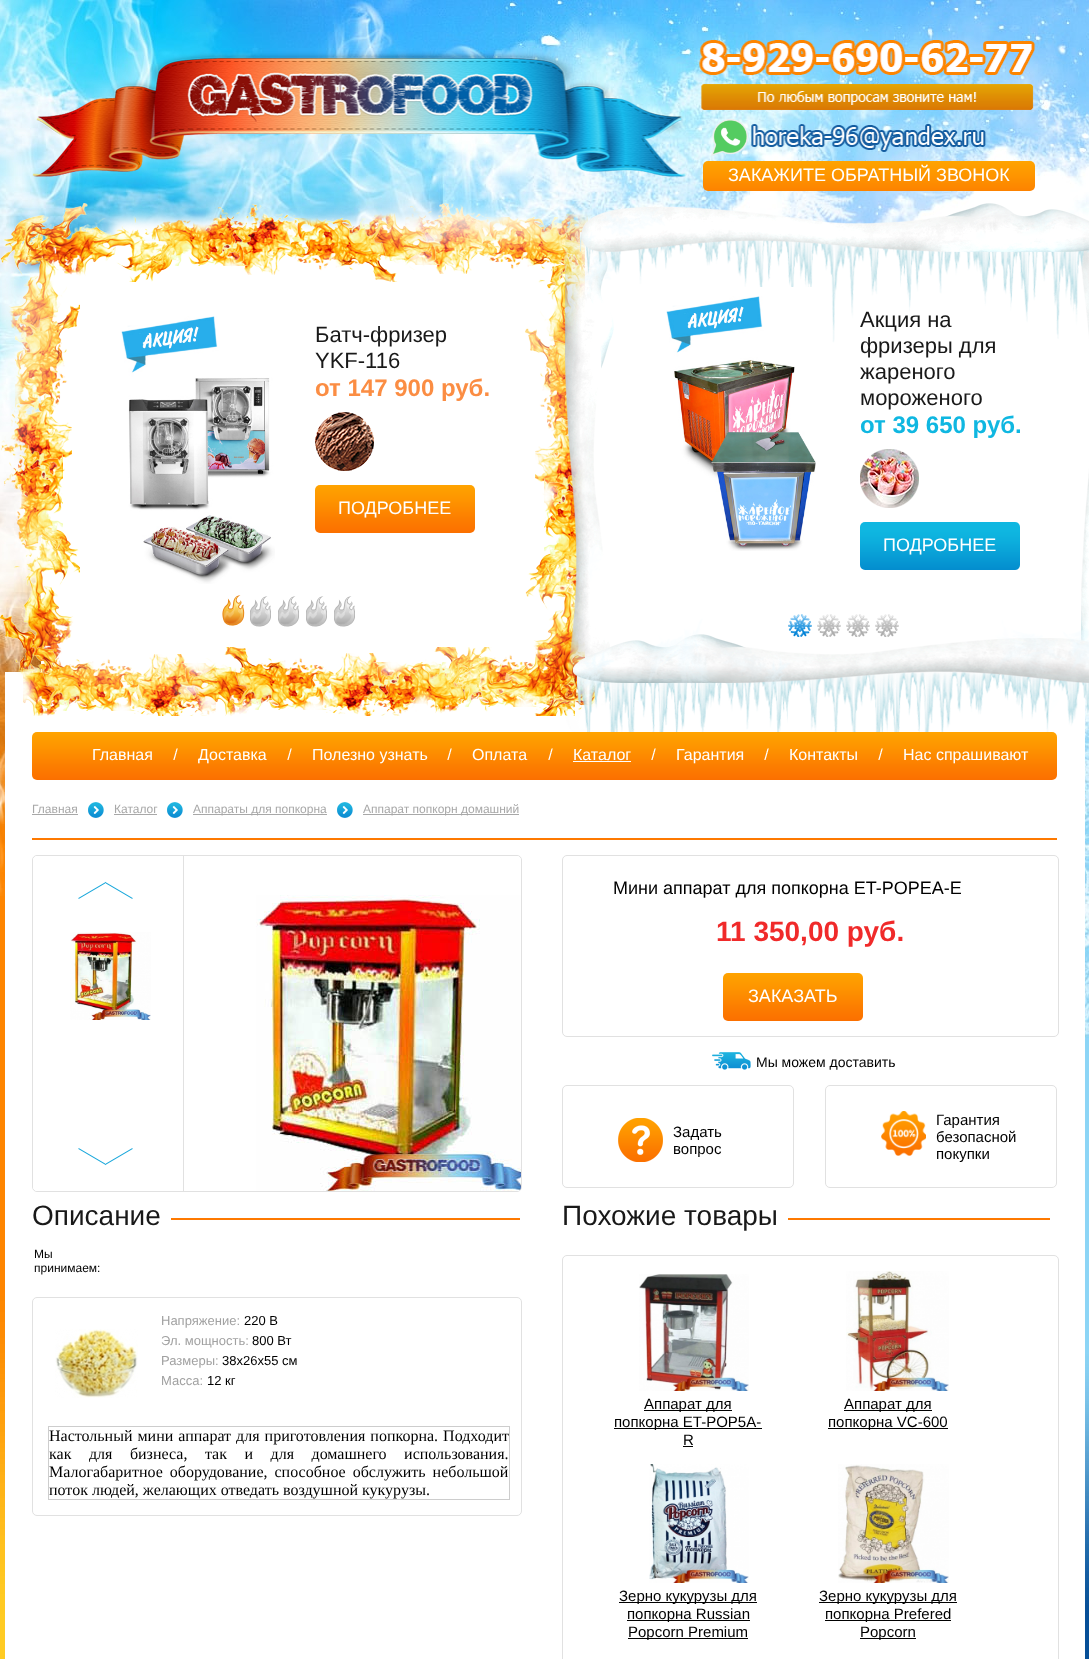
<svg xmlns="http://www.w3.org/2000/svg" width="1089" height="1659" viewBox="0 0 1089 1659">
  <style>
    .t1 { font: 18px Liberation Sans; fill: #fff; }
    .t2 { font: 22px Liberation Sans; fill: #191919; }
    .t3 { font: bold 24px Liberation Sans; fill: #fb8d43; }
    .t4 { font: bold 24px Liberation Sans; fill: #0fb7e1; }
    .t5 { font: 16px Liberation Sans; fill: #fff; }
    .t6 { font: 12px Liberation Sans; fill: #a8a8a8; }
    .t7 { font: 18px Liberation Sans; fill: #000; }
    .t8 { font: bold 28px Liberation Sans; fill: #f02a2a; }
    .t9 { font: 14px Liberation Sans; fill: #000; }
    .t10 { font: 15px Liberation Sans; fill: #000; }
    .t11 { font: 28px Liberation Sans; fill: #191919; }
    .t12 { font: 12px Liberation Sans; fill: #000; }
    .t13 { font: 13px Liberation Sans; fill: #a1a1a1; }
    .t14 { font: 13px Liberation Sans; fill: #000; }
    .t15 { font: 16px Liberation Serif; fill: #000; }
  </style>
  <rect width="100%" height="100%" fill="#fff"/>
  <image x="0" y="0" width="1089" height="1659" href="images/1.png"/>
  <image x="32" y="40" width="1004" height="137" href="images/2.png"/>
  <image x="711" y="119" width="37" height="37" href="images/3.png"/>
  <image x="703" y="161" width="332" height="30" href="images/4.png"/>
  <text x="728" y="181" class="t1">ЗАКАЖИТЕ ОБРАТНЫЙ ЗВОНОК</text>
  <rect x="5" y="672" width="1080" height="987" fill="#fff"/>
  <image x="0" y="202" width="600" height="514" href="images/5.png"/>
  <rect x="80" y="282" width="412" height="365" fill="#fff"/>
  <image x="121" y="316" width="154" height="268" href="images/6.png"/>
  <text x="315" y="342" class="t2">Батч-фризер</text>
  <text x="315" y="368" class="t2">YKF-116</text>
  <text x="315" y="396" class="t3">от 147 900 руб.</text>
  <image x="315" y="412" width="59" height="59" href="images/7.png"/>
  <image x="315" y="485" width="160" height="48" href="images/8.png"/>
  <text x="338" y="514" class="t1">ПОДРОБНЕЕ</text>
  <image x="222" y="595" width="23" height="31" href="images/9.png"/>
  <image x="250" y="596" width="21" height="31" href="images/10.png"/>
  <image x="278" y="596" width="21" height="31" href="images/10.png"/>
  <image x="306" y="596" width="21" height="31" href="images/10.png"/>
  <image x="334" y="596" width="21" height="31" href="images/10.png"/>
  <image x="565" y="202" width="524" height="530" href="images/11.png"/>
  <image x="666" y="287" width="150" height="264" href="images/12.png"/>
  <text x="860" y="327" class="t2">Акция на</text>
  <text x="860" y="353" class="t2">фризеры для</text>
  <text x="860" y="379" class="t2">жареного</text>
  <text x="860" y="405" class="t2">мороженого</text>
  <text x="860" y="433" class="t4">от 39 650 руб.</text>
  <image x="860" y="449" width="59" height="59" href="images/13.png"/>
  <image x="860" y="522" width="160" height="48" href="images/14.png"/>
  <text x="883" y="551" class="t1">ПОДРОБНЕЕ</text>
  <image x="788" y="614" width="24" height="23" href="images/15.png"/>
  <image x="817" y="614" width="24" height="23" href="images/16.png"/>
  <image x="846" y="614" width="24" height="23" href="images/16.png"/>
  <image x="875" y="614" width="24" height="23" href="images/16.png"/>
  <image x="32" y="732" width="1025" height="48" href="images/17.png"/>
  <text x="92" y="760" class="t5">Главная</text>
  <image x="173" y="748" width="5" height="12" href="images/18.png"/>
  <text x="198" y="760" class="t5">Доставка</text>
  <image x="287" y="748" width="5" height="12" href="images/18.png"/>
  <text x="312" y="760" class="t5">Полезно узнать</text>
  <image x="447" y="748" width="5" height="12" href="images/18.png"/>
  <text x="472" y="760" class="t5">Оплата</text>
  <image x="548" y="748" width="5" height="12" href="images/18.png"/>
  <text x="573" y="760" class="t5">Каталог</text>
  <rect x="573" y="761" width="58" height="1" fill="#fff"/>
  <image x="651" y="748" width="5" height="12" href="images/18.png"/>
  <text x="676" y="760" class="t5">Гарантия</text>
  <image x="764" y="748" width="5" height="12" href="images/18.png"/>
  <text x="789" y="760" class="t5">Контакты</text>
  <image x="878" y="748" width="5" height="12" href="images/18.png"/>
  <text x="903" y="760" class="t5">Нас спрашивают</text>
  <text x="32" y="813" class="t6">Главная</text>
  <rect x="32" y="814" width="46" height="1" fill="#a8a8a8"/>
  <image x="88" y="802" width="16" height="16" href="images/19.png"/>
  <text x="114" y="813" class="t6">Каталог</text>
  <rect x="114" y="814" width="43" height="1" fill="#a8a8a8"/>
  <image x="167" y="802" width="16" height="16" href="images/19.png"/>
  <rect x="193" y="814" width="134" height="1" fill="#a8a8a8"/>
  <text x="193" y="813" class="t6">Аппараты для попкорна</text>
  <image x="337" y="802" width="16" height="16" href="images/19.png"/>
  <rect x="363" y="814" width="156" height="1" fill="#a8a8a8"/>
  <text x="363" y="813" class="t6">Аппарат попкорн домашний</text>
  <rect x="32" y="838" width="1025" height="2" fill="#fe7900"/>
  <rect x="32.5" y="855.5" width="489" height="336" rx="4.5" fill="none" stroke="#e1e1e1"/>
  <path d="M37 856H184V1191H37C35 1191 33 1189 33 1187V860C33 858 35 856 37 856Z" fill="#fff"/>
  <rect x="183" y="856" width="1" height="335" fill="#e1e1e1"/>
  <image x="78" y="881" width="55" height="18" href="images/20.png"/>
  <image x="70" y="932" width="81" height="88" href="images/21.png"/>
  <image x="78" y="1148" width="55" height="18" href="images/22.png"/>
  <path d="M188 856H517C519 856 521 858 521 860V1187C521 1189 519 1191 517 1191H188Z" fill="#fff"/>
  <image x="256" y="895" width="265" height="296" href="images/23.png"/>
  <rect x="562.5" y="855.5" width="496" height="181" rx="4.5" fill="none" stroke="#e1e1e1"/>
  <text x="613" y="894" class="t7">Мини аппарат для попкорна ET-POPEA-E</text>
  <text x="716" y="941" class="t8">11 350,00 руб.</text>
  <image x="723" y="973" width="140" height="48" href="images/24.png"/>
  <text x="748" y="1002" class="t1">ЗАКАЗАТЬ</text>
  <image x="712" y="1052" width="39" height="18" href="images/25.png"/>
  <text x="756" y="1067" class="t9">Мы можем доставить</text>
  <rect x="562.5" y="1085.5" width="231" height="102" rx="4.5" fill="none" stroke="#e1e1e1"/>
  <image x="618" y="1118" width="45" height="44" href="images/26.png"/>
  <text x="673" y="1137" class="t10">Задать</text>
  <text x="673" y="1154" class="t10">вопрос</text>
  <rect x="825.5" y="1085.5" width="231" height="102" rx="4.5" fill="none" stroke="#e1e1e1"/>
  <image x="881" y="1111" width="45" height="45" href="images/27.png"/>
  <text x="936" y="1125" class="t10">Гарантия</text>
  <text x="936" y="1142" class="t10">безопасной</text>
  <text x="936" y="1159" class="t10">покупки</text>
  <rect x="171" y="1218" width="349" height="2" fill="#fe7900"/>
  <text x="32" y="1225" class="t11">Описание</text>
  <text x="34" y="1258" class="t12">Мы</text>
  <text x="34" y="1272" class="t12">принимаем:</text>
  <rect x="32.5" y="1297.5" width="489" height="218" rx="4.5" fill="none" stroke="#e1e1e1"/>
  <image x="55" y="1329" width="83" height="69" href="images/28.png"/>
  <text x="161" y="1325" class="t13">Напряжение:</text>
  <text x="244" y="1325" class="t14">220 В</text>
  <text x="161" y="1345" class="t13">Эл. мощность:</text>
  <text x="252" y="1345" class="t14">800 Вт</text>
  <text x="161" y="1365" class="t13">Размеры:</text>
  <text x="222" y="1365" class="t14">38x26x55 см</text>
  <text x="161" y="1385" class="t13">Масса:</text>
  <text x="207" y="1385" class="t14">12 кг</text>
  <rect x="48.5" y="1426.5" width="461" height="73" fill="none" stroke="#cdcdcd"/>
  <text x="49" y="1441" word-spacing="1" class="t15">Настольный мини аппарат для приготовления попкорна. Подходит</text>
  <text x="49" y="1459" word-spacing="13.5" class="t15">как для бизнеса, так и для домашнего использования.</text>
  <text x="49" y="1477" word-spacing="3" class="t15">Малогабаритное оборудование, способное обслужить небольшой</text>
  <text x="49" y="1495" class="t15">поток людей, желающих отведать воздушной кукурузы.</text>
  <rect x="788" y="1218" width="262" height="2" fill="#fe7900"/>
  <text x="562" y="1225" class="t11">Похожие товары</text>
  <rect x="562.5" y="1255.5" width="496" height="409" rx="4.5" fill="none" stroke="#e1e1e1"/>
  <image x="639" y="1274" width="110" height="117" href="images/29.png"/>
  <rect x="644" y="1410" width="88" height="1" fill="#000"/>
  <text x="644" y="1409" class="t10">Аппарат для</text>
  <rect x="614" y="1428" width="148" height="1" fill="#000"/>
  <text x="614" y="1427" class="t10">попкорна ET-POP5A-</text>
  <text x="683" y="1445" class="t10">R</text>
  <rect x="683" y="1446" width="10" height="1" fill="#000"/>
  <image x="846" y="1271" width="103" height="120" href="images/30.png"/>
  <rect x="844" y="1410" width="88" height="1" fill="#000"/>
  <text x="844" y="1409" class="t10">Аппарат для</text>
  <rect x="828" y="1428" width="120" height="1" fill="#000"/>
  <text x="828" y="1427" class="t10">попкорна VC-600</text>
  <image x="649" y="1464" width="100" height="119" href="images/31.png"/>
  <rect x="619" y="1602" width="138" height="1" fill="#000"/>
  <text x="619" y="1601" class="t10">Зерно кукурузы для</text>
  <rect x="627" y="1620" width="123" height="1" fill="#000"/>
  <text x="627" y="1619" class="t10">попкорна Russian</text>
  <rect x="628" y="1638" width="120" height="1" fill="#000"/>
  <text x="628" y="1637" class="t10">Popcorn Premium</text>
  <image x="838" y="1464" width="111" height="119" href="images/32.png"/>
  <rect x="819" y="1602" width="138" height="1" fill="#000"/>
  <text x="819" y="1601" class="t10">Зерно кукурузы для</text>
  <rect x="825" y="1620" width="126" height="1" fill="#000"/>
  <text x="825" y="1619" class="t10">попкорна Prefered</text>
  <rect x="860" y="1638" width="56" height="1" fill="#000"/>
  <text x="860" y="1637" class="t10">Popcorn</text>
</svg>
